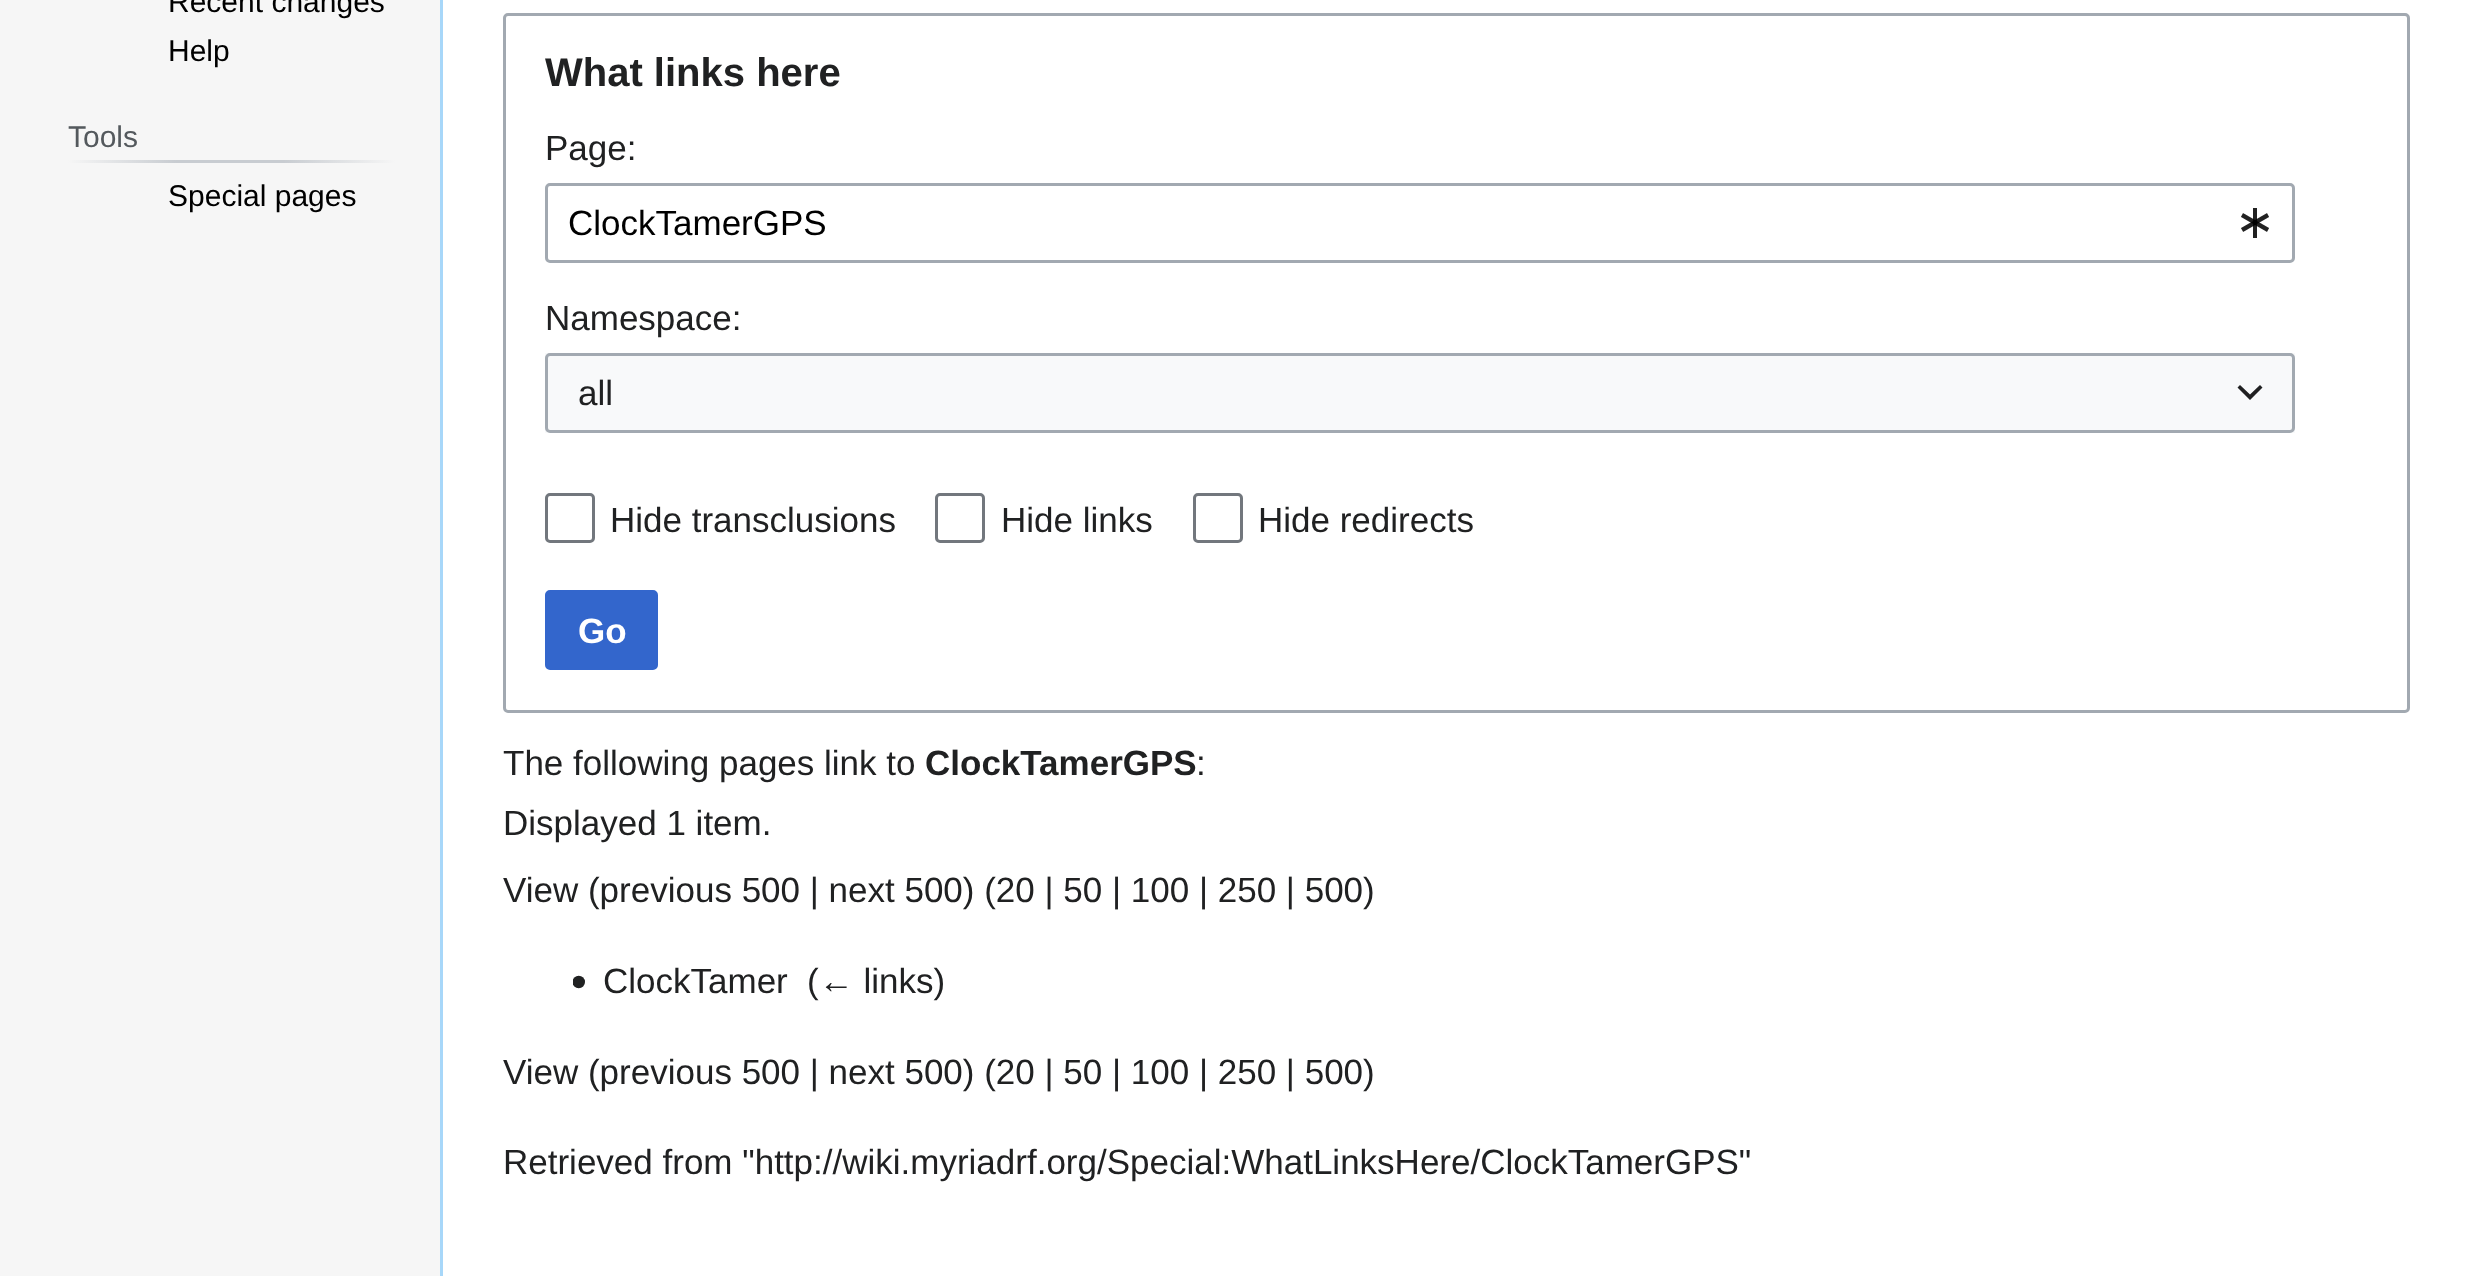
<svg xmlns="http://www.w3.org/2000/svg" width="2469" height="1276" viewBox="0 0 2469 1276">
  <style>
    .t1 { font: 30px Liberation Sans; fill: #000; }
    .t2 { font: 30px Liberation Sans; fill: #54595d; }
    .t3 { font: bold 40px Liberation Sans; fill: #202122; }
    .t4 { font: 35px Liberation Sans; fill: #202122; }
    .t5 { font: 35px Liberation Sans; fill: #000; }
    .t6 { font: bold 35px Liberation Sans; fill: #fff; }
    .t7 { font: bold 35px Liberation Sans; fill: #202122; }
  </style>
  <defs>
    <linearGradient id="g1" gradientUnits="userSpaceOnUse" x1="68" y1="161" x2="395" y2="161"><stop offset="0" stop-color="#f6f6f6"/><stop offset="0.33" stop-color="#c8ccd1"/><stop offset="0.66" stop-color="#c8ccd1"/><stop offset="1" stop-color="#f6f6f6"/></linearGradient>
  </defs>
  <rect width="100%" height="100%" fill="#f6f6f6"/>
  <text x="168" y="12" class="t1">Recent changes</text>
  <text x="168" y="61" class="t1">Help</text>
  <rect x="68" y="160" width="327" height="3" fill="url(#g1)"/>
  <text x="68" y="147" class="t2">Tools</text>
  <text x="168" y="206" class="t1">Special pages</text>
  <rect x="443" y="0" width="2026" height="1276" fill="#fff"/>
  <rect x="440" y="0" width="3" height="1276" fill="#a7d7f9"/>
  <rect x="504.5" y="14.5" width="1904" height="697" rx="3.5" fill="none" stroke="#a2a9b1" stroke-width="3"/>
  <text x="545" y="86" class="t3">What links here</text>
  <text x="545" y="160" class="t4">Page:</text>
  <rect x="546.5" y="184.5" width="1747" height="77" rx="3.5" fill="none" stroke="#a2a9b1" stroke-width="3"/>
  <text x="568" y="235" class="t5">ClockTamerGPS</text>
  <image x="2241" y="208" width="28" height="30" href="images/1.png"/>
  <text x="545" y="330" class="t4">Namespace:</text>
  <rect x="545" y="353" width="1750" height="80" fill="#f8f9fa"/>
  <rect x="546.5" y="354.5" width="1747" height="77" rx="3.5" fill="none" stroke="#a2a9b1" stroke-width="3"/>
  <text x="578" y="405" class="t4">all</text>
  <path d="M2260 385L2250 394.5L2240 385L2237.5 387.5L2250 400L2262.5 387.5Z" fill="#202021"/>
  <rect x="546.5" y="494.5" width="47" height="47" rx="3.5" fill="none" stroke="#72777d" stroke-width="3"/>
  <text x="610" y="532" class="t4">Hide transclusions</text>
  <rect x="936.5" y="494.5" width="47" height="47" rx="3.5" fill="none" stroke="#72777d" stroke-width="3"/>
  <text x="1001" y="532" class="t4">Hide links</text>
  <rect x="1194.5" y="494.5" width="47" height="47" rx="3.5" fill="none" stroke="#72777d" stroke-width="3"/>
  <text x="1258" y="532" class="t4">Hide redirects</text>
  <rect x="546.5" y="591.5" width="110" height="77" rx="3.5" fill="#36c" stroke="#36c" stroke-width="3"/>
  <text x="578" y="643" class="t6">Go</text>
  <text x="503" y="775" class="t4">The following pages link to</text>
  <text x="925" y="775" class="t7">ClockTamerGPS</text>
  <text x="1196" y="775" class="t4">:</text>
  <text x="503" y="835" class="t4">Displayed 1 item.</text>
  <text x="503" y="902" class="t4">View (previous 500 | next 500) (20 | 50 | 100 | 250 | 500)</text>
  <image x="573" y="975" width="12" height="14" href="images/2.png"/>
  <text x="603" y="993" class="t4">ClockTamer</text>
  <text x="807" y="993" class="t4">(← links)</text>
  <text x="503" y="1084" class="t4">View (previous 500 | next 500) (20 | 50 | 100 | 250 | 500)</text>
  <text x="503" y="1174" class="t4">Retrieved from "http://wiki.myriadrf.org/Special:WhatLinksHere/ClockTamerGPS"</text>
</svg>
